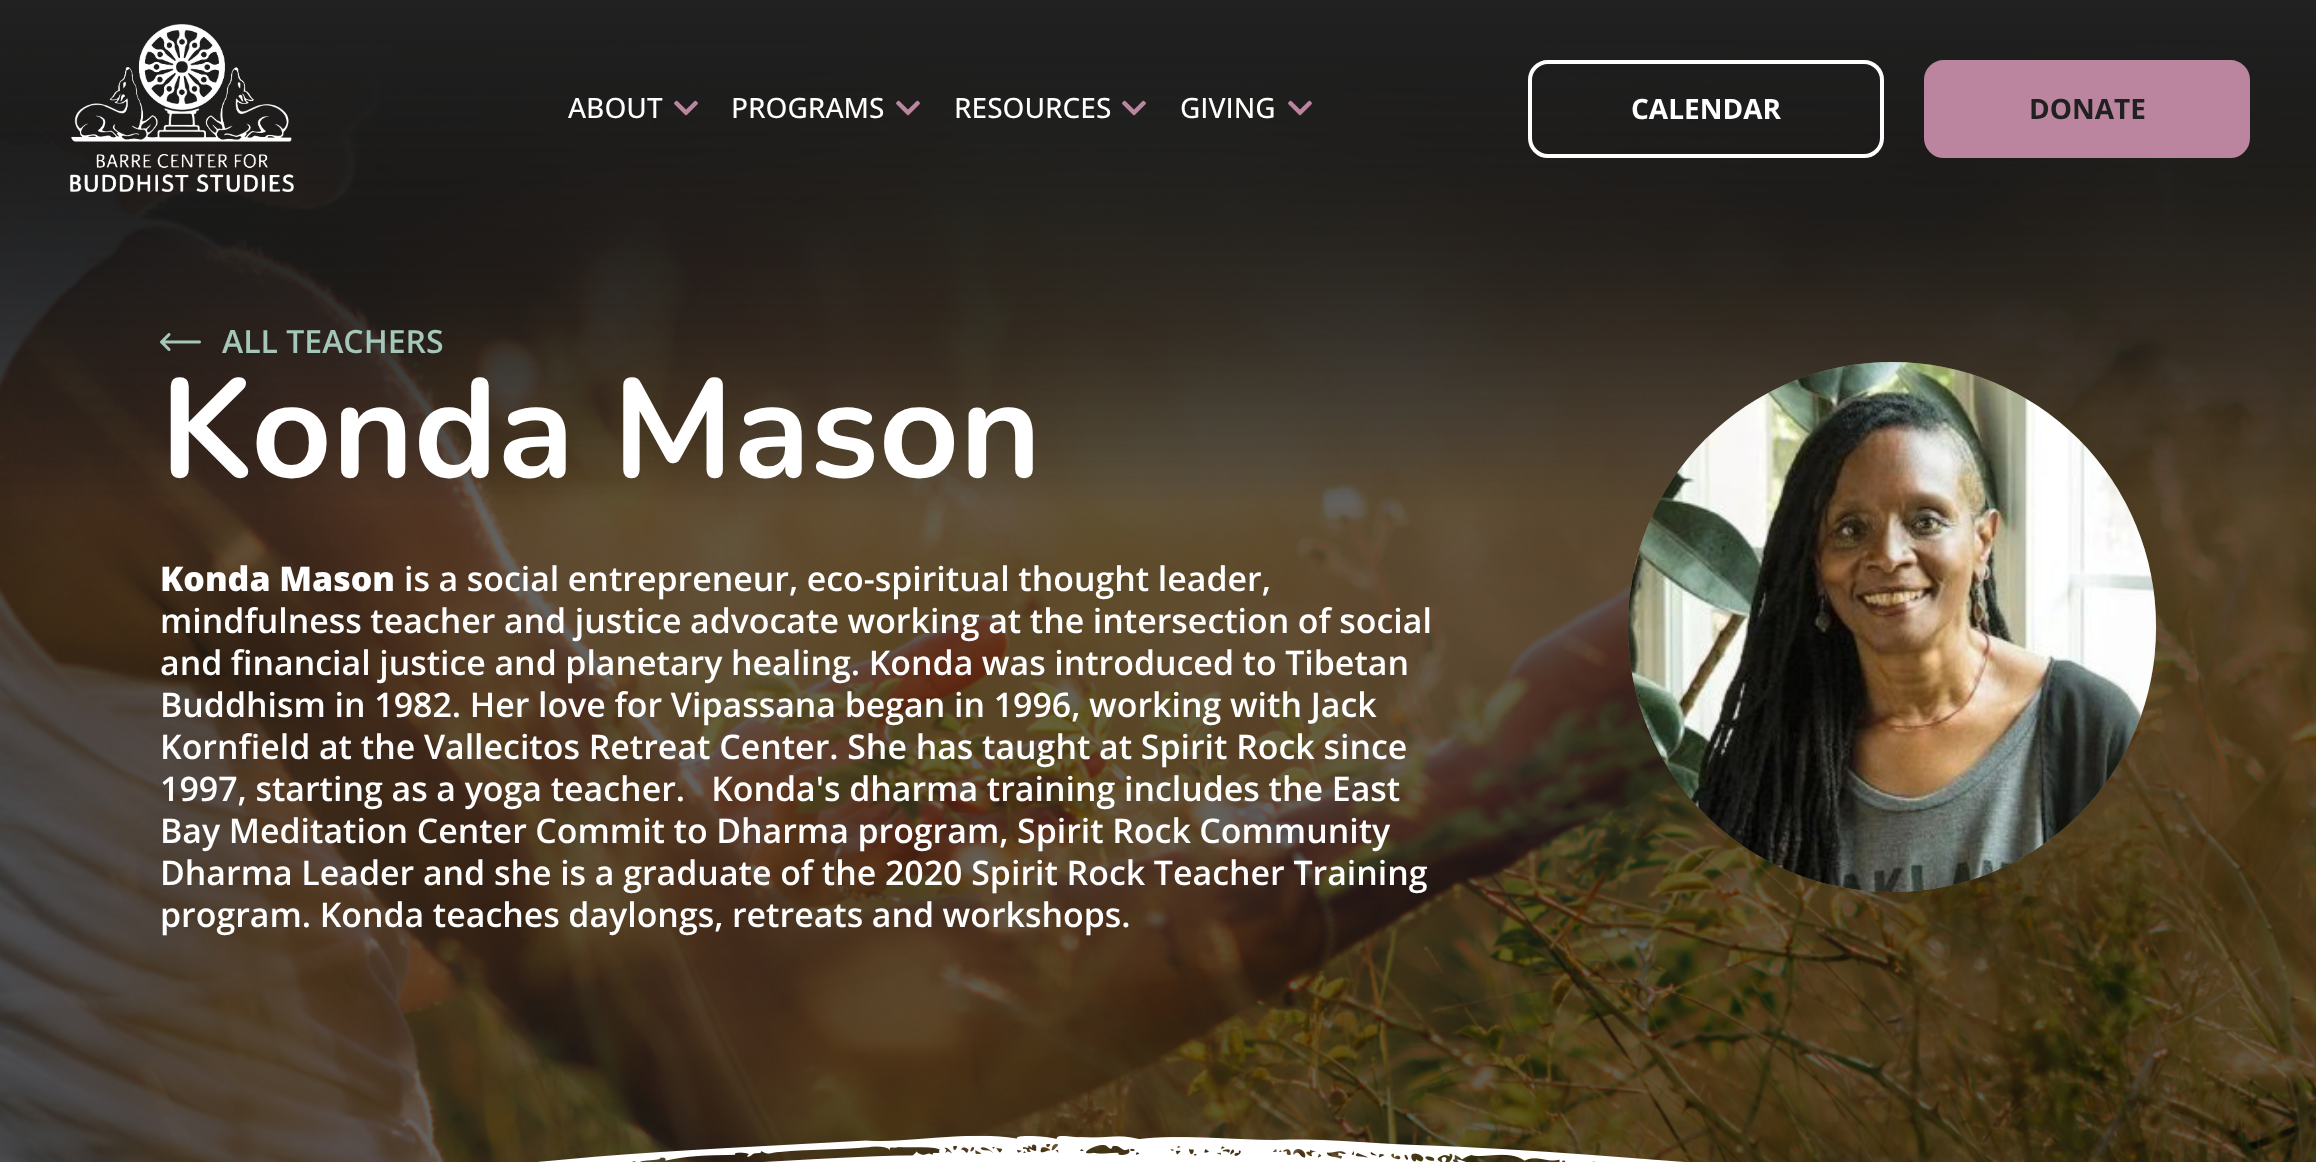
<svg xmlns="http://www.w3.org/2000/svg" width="2316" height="1162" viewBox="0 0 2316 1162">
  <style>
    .t1 { font: 500 28px Open Sans; fill: #fff; }
    .t2 { font: bold 28px Open Sans; fill: #fff; }
    .t3 { font: bold 28px Open Sans; fill: #212121; }
    .t4 { font: 600 32px Open Sans; fill: #a5c7b9; }
    .t5 { font: bold 140px Nunito; fill: #fff; }
    .t6 { font: 800 33.9px Open Sans; fill: #fff; }
    .t7 { font: 600 33.9px Open Sans; fill: #fff; }
  </style>
  <rect width="100%" height="100%" fill="#fff"/>
  <image x="0" y="0" width="2316" height="1162" href="images/6.png"/>
  <image x="70" y="24" width="224" height="168" href="images/1.png"/>
  <text x="568" y="118" class="t1">ABOUT</text>
  <image x="674" y="100" width="24" height="16" href="images/2.png"/>
  <text x="731" y="118" class="t1">PROGRAMS</text>
  <image x="896" y="100" width="24" height="16" href="images/3.png"/>
  <text x="954" y="118" class="t1">RESOURCES</text>
  <image x="1122" y="100" width="24" height="16" href="images/4.png"/>
  <text x="1180" y="118" class="t1">GIVING</text>
  <image x="1288" y="100" width="24" height="16" href="images/5.png"/>
  <rect x="1530" y="62" width="352" height="94" rx="18" fill="none" stroke="#fff" stroke-width="4"/>
  <text x="1631" y="119" class="t2">CALENDAR</text>
  <rect x="1926" y="62" width="322" height="94" rx="18" fill="#bc859f" stroke="#bc859f" stroke-width="4"/>
  <text x="2029" y="119" class="t3">DONATE</text>
  <image x="160" y="333" width="41" height="18" href="images/7.png"/>
  <text x="222" y="353" class="t4">ALL TEACHERS</text>
  <text x="160" y="477" class="t5">Konda Mason</text>
  <text x="160" y="591" class="t6">Konda Mason</text>
  <text x="404" y="591" word-spacing="-0.25" class="t7">is a social entrepreneur, eco-spiritual thought leader,</text>
  <text x="160" y="633" word-spacing="-0.25" class="t7">mindfulness teacher and justice advocate working at the intersection of social</text>
  <text x="160" y="675" word-spacing="-0.25" class="t7">and financial justice and planetary healing. Konda was introduced to Tibetan</text>
  <text x="160" y="717" word-spacing="-0.1" class="t7">Buddhism in 1982. Her love for Vipassana began in 1996, working with Jack</text>
  <text x="160" y="759" word-spacing="-0.1" class="t7">Kornfield at the Vallecitos Retreat Center. She has taught at Spirit Rock since</text>
  <text x="160" y="801" word-spacing="-0.1" class="t7" xml:space="preserve">1997, starting as a yoga teacher.   Konda's dharma training includes the East</text>
  <text x="160" y="843" word-spacing="-0.25" class="t7">Bay Meditation Center Commit to Dharma program, Spirit Rock Community</text>
  <text x="160" y="885" word-spacing="-0.1" class="t7">Dharma Leader and she is a graduate of the 2020 Spirit Rock Teacher Training</text>
  <text x="160" y="927" word-spacing="-0.25" class="t7">program. Konda teaches daylongs, retreats and workshops.</text>
  <rect x="1628" y="362" width="528" height="530" rx="264" fill="#ffffff4d"/>
  <image x="1628" y="362" width="528" height="530" href="images/8.png"/>
  <image x="537" y="1135" width="1147" height="27" href="images/9.png"/>
</svg>
